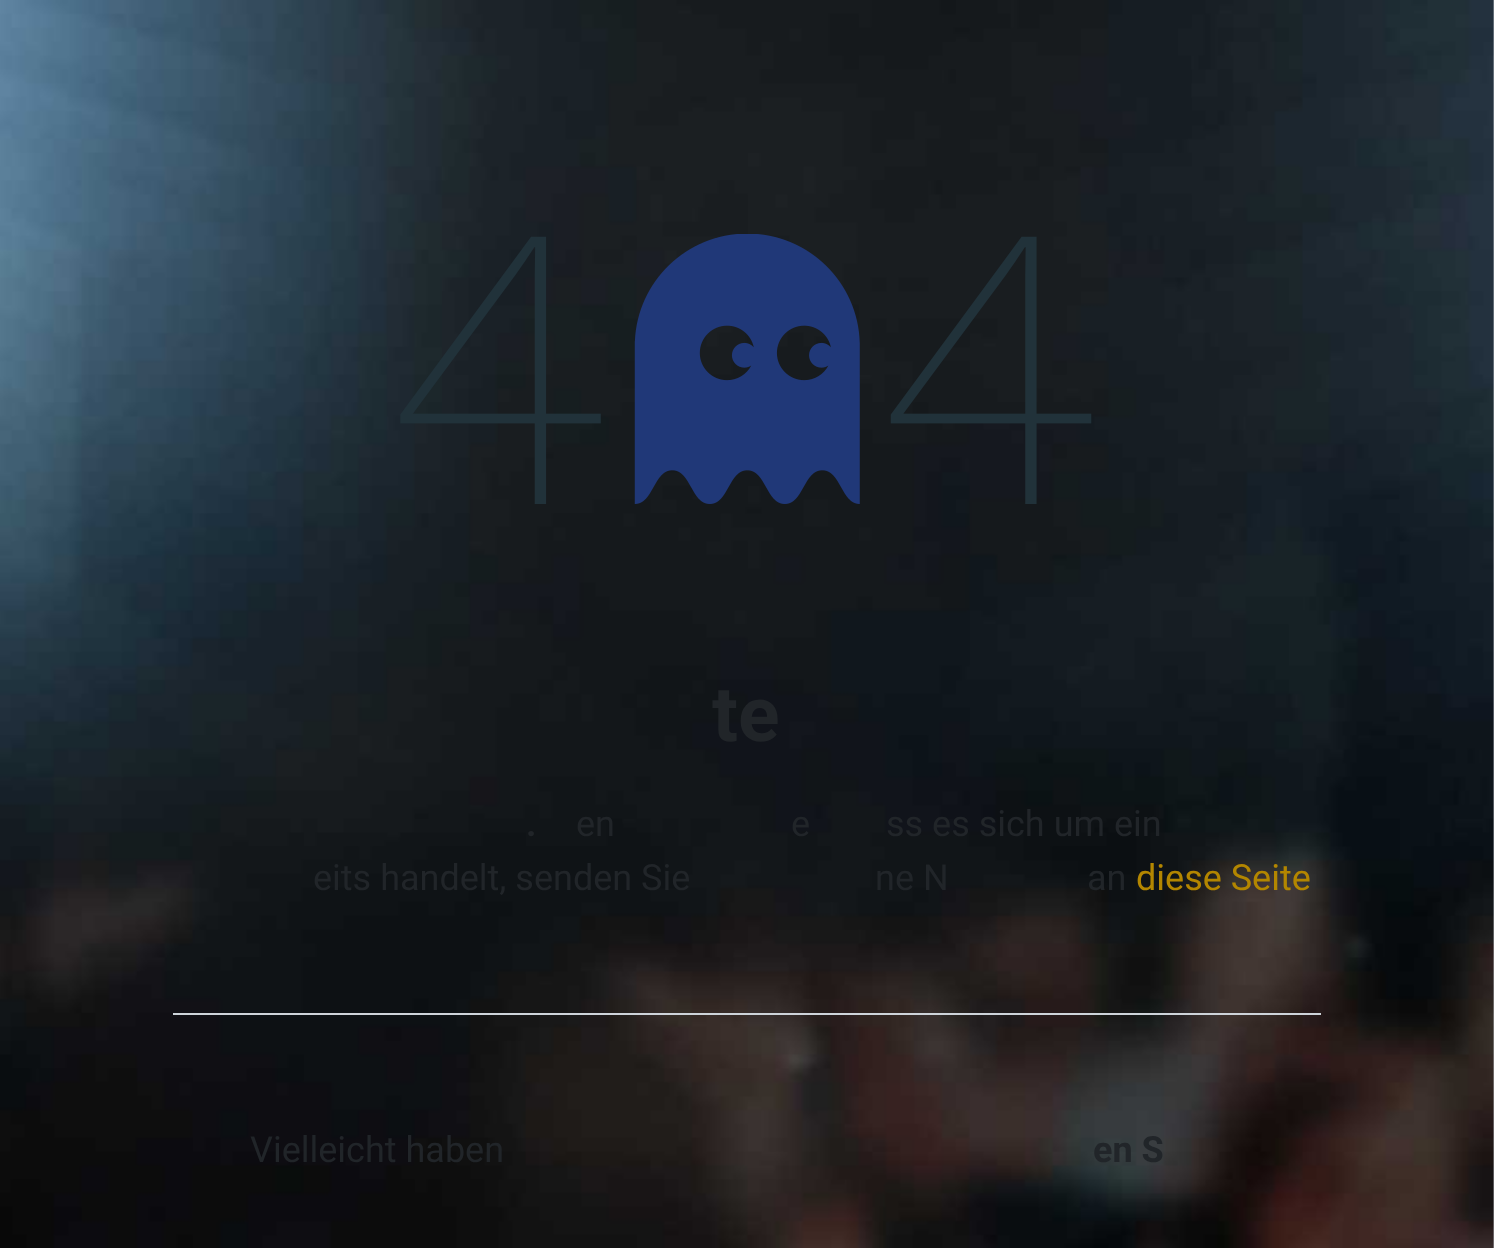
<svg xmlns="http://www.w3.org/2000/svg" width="1494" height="1248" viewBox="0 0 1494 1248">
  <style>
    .t1 { font: bold 77px Roboto; fill: #212529; }
    .t2 { font: bold 36px Roboto; fill: #212529; }
    .t3 { font: 36px Roboto; fill: #212529; }
    .t4 { font: 36px Roboto; fill: #b38600; }
  </style>
  <rect width="100%" height="100%" fill="#ced4da"/>
  <image x="0" y="0" width="1494" height="1248" href="images/1.png"/>
  <image x="400" y="234" width="692" height="270" href="images/2.png"/>
  <text x="712" y="741" class="t1">te</text>
  <text x="526" y="836" class="t2">.</text>
  <text x="576" y="836" class="t3">en</text>
  <text x="791" y="836" class="t3">e</text>
  <text x="886" y="836" class="t3">ss es sich um ein</text>
  <text x="313" y="890" class="t3">eits handelt, senden Sie</text>
  <text x="875" y="890" class="t3">ne N</text>
  <text x="1087" y="890" class="t3">an</text>
  <text x="1136" y="890" class="t4">diese Seite</text>
  <rect x="173" y="1013" width="1148" height="2" fill="#ced4da"/>
  <text x="250" y="1162" class="t3">Vielleicht haben</text>
  <text x="1093" y="1162" class="t2">en S</text>
</svg>
